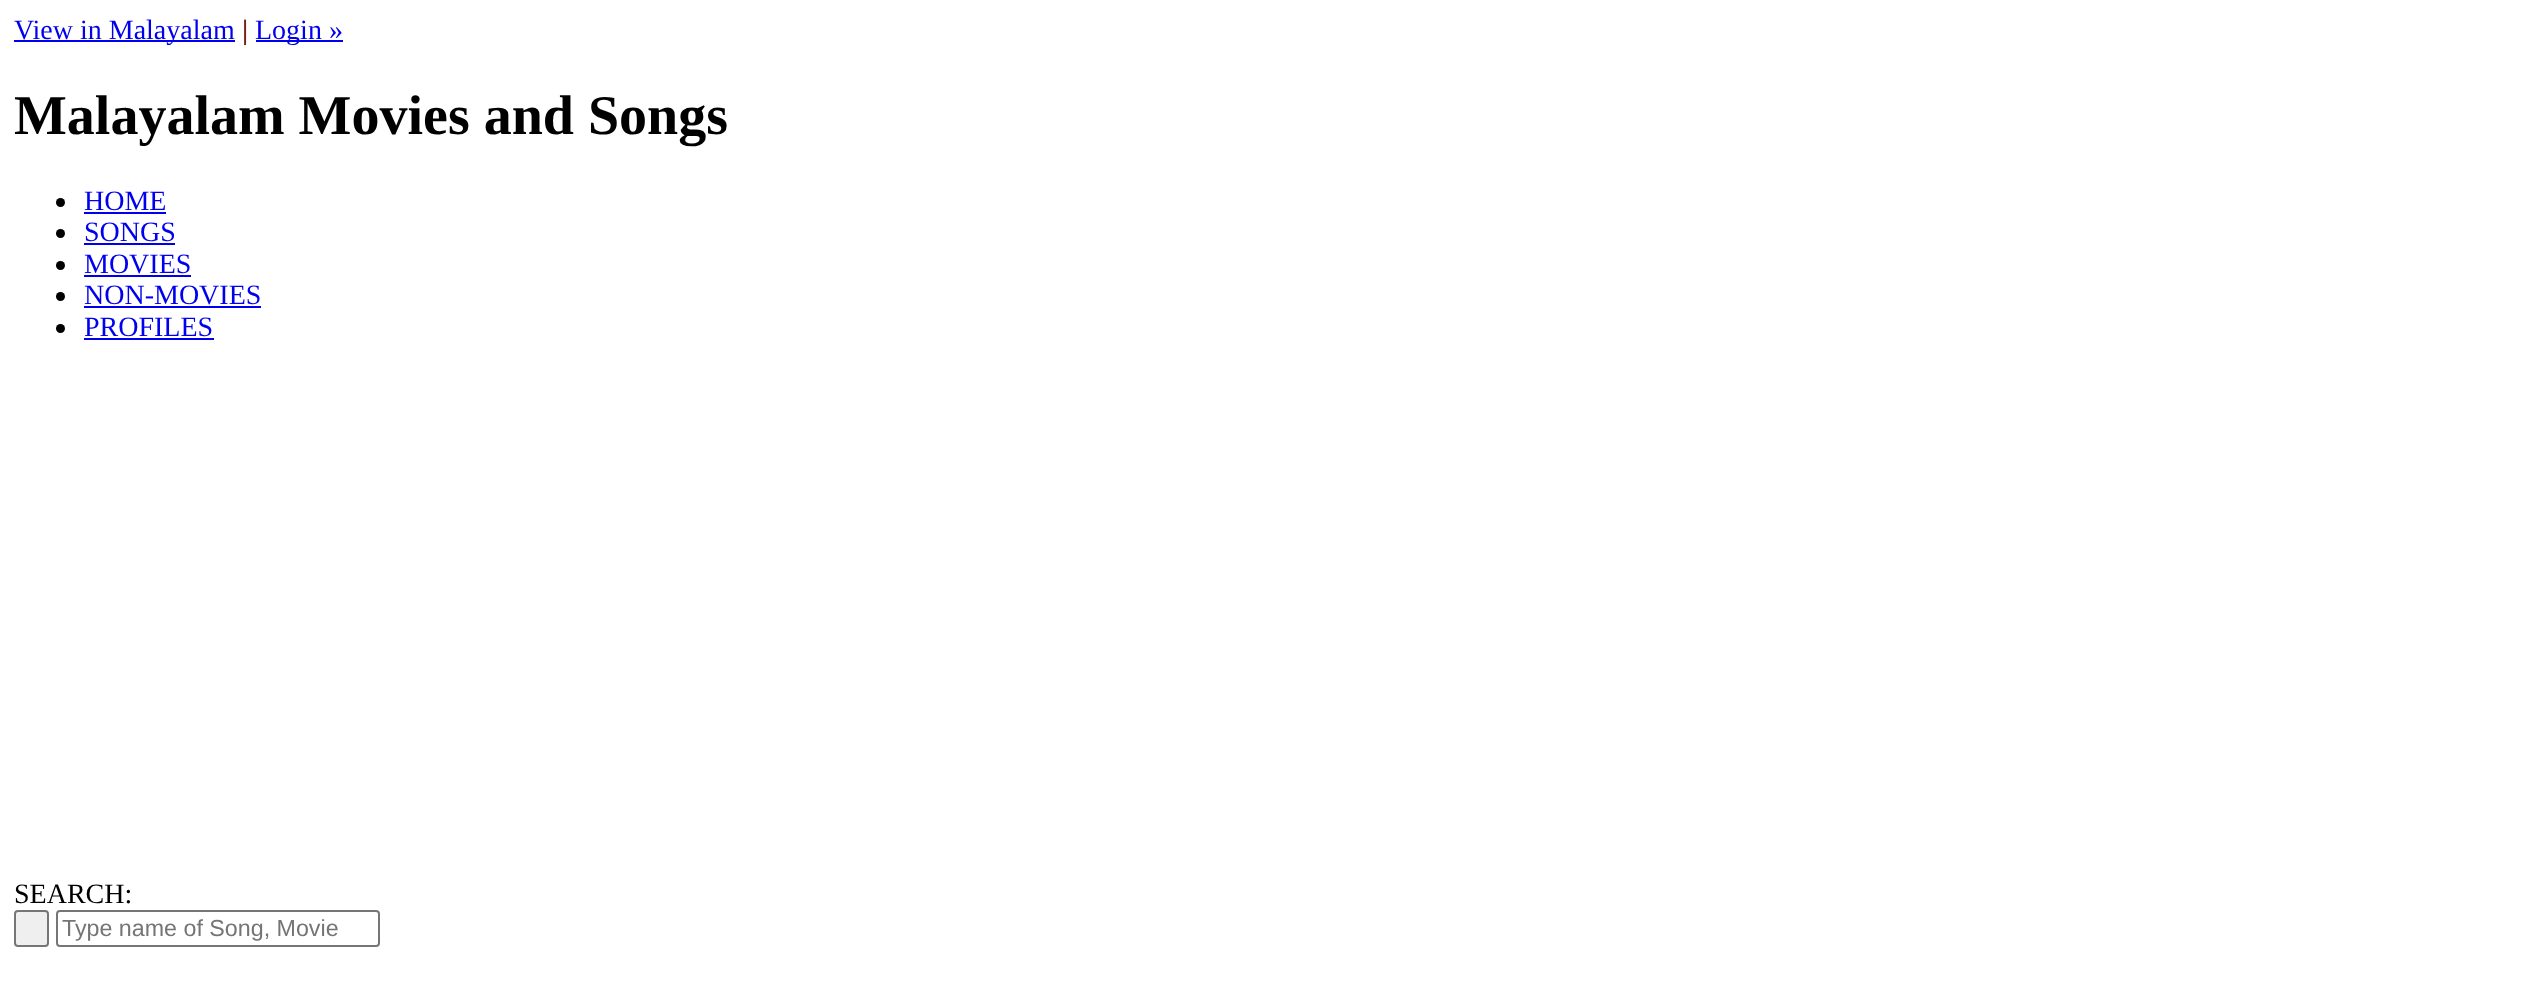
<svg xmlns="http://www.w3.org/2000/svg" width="2544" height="997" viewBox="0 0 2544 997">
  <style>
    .t1 { font: 28px Liberation Serif; fill: #00e; }
    .t2 { font: bold 28px Liberation Serif; fill: #762311; }
    .t3 { font: bold 56px Liberation Serif; fill: #000; }
    .t4 { font: 28px Liberation Serif; fill: #000; }
    .t5 { font: 23.25px Liberation Sans; fill: #757575; }
  </style>
  <rect width="100%" height="100%" fill="#fff"/>
  <rect x="14" y="40" width="221" height="2" fill="#00e"/>
  <text x="14" y="39" class="t1">View in Malayalam</text>
  <text x="242" y="39" class="t2">|</text>
  <rect x="256" y="40" width="87" height="2" fill="#00e"/>
  <text x="255" y="39" class="t1">Login »</text>
  <text x="14" y="134" class="t3">Malayalam Movies and Songs</text>
  <circle cx="60.5" cy="202.5" r="4.5" fill="#000"/>
  <text x="84" y="210" class="t1">HOME</text>
  <rect x="84" y="212" width="82" height="2" fill="#00e"/>
  <circle cx="60.5" cy="233.5" r="4.5" fill="#000"/>
  <text x="84" y="241" class="t1">SONGS</text>
  <rect x="84" y="243" width="91" height="2" fill="#00e"/>
  <circle cx="60.5" cy="265.5" r="4.5" fill="#000"/>
  <text x="84" y="273" class="t1">MOVIES</text>
  <rect x="84" y="275" width="107" height="2" fill="#00e"/>
  <circle cx="60.5" cy="296.5" r="4.5" fill="#000"/>
  <text x="84" y="304" class="t1">NON-MOVIES</text>
  <rect x="84" y="306" width="177" height="2" fill="#00e"/>
  <circle cx="60.5" cy="328.5" r="4.5" fill="#000"/>
  <text x="84" y="336" class="t1">PROFILES</text>
  <rect x="84" y="338" width="130" height="2" fill="#00e"/>
  <text x="14" y="903" class="t4">SEARCH:</text>
  <rect x="15" y="911" width="33" height="35" rx="3" fill="#efefef" stroke="#767676" stroke-width="2"/>
  <rect x="57" y="911" width="322" height="35" rx="3" fill="none" stroke="#767676" stroke-width="2"/>
  <text x="62" y="936" class="t5">Type name of Song, Movie</text>
</svg>
